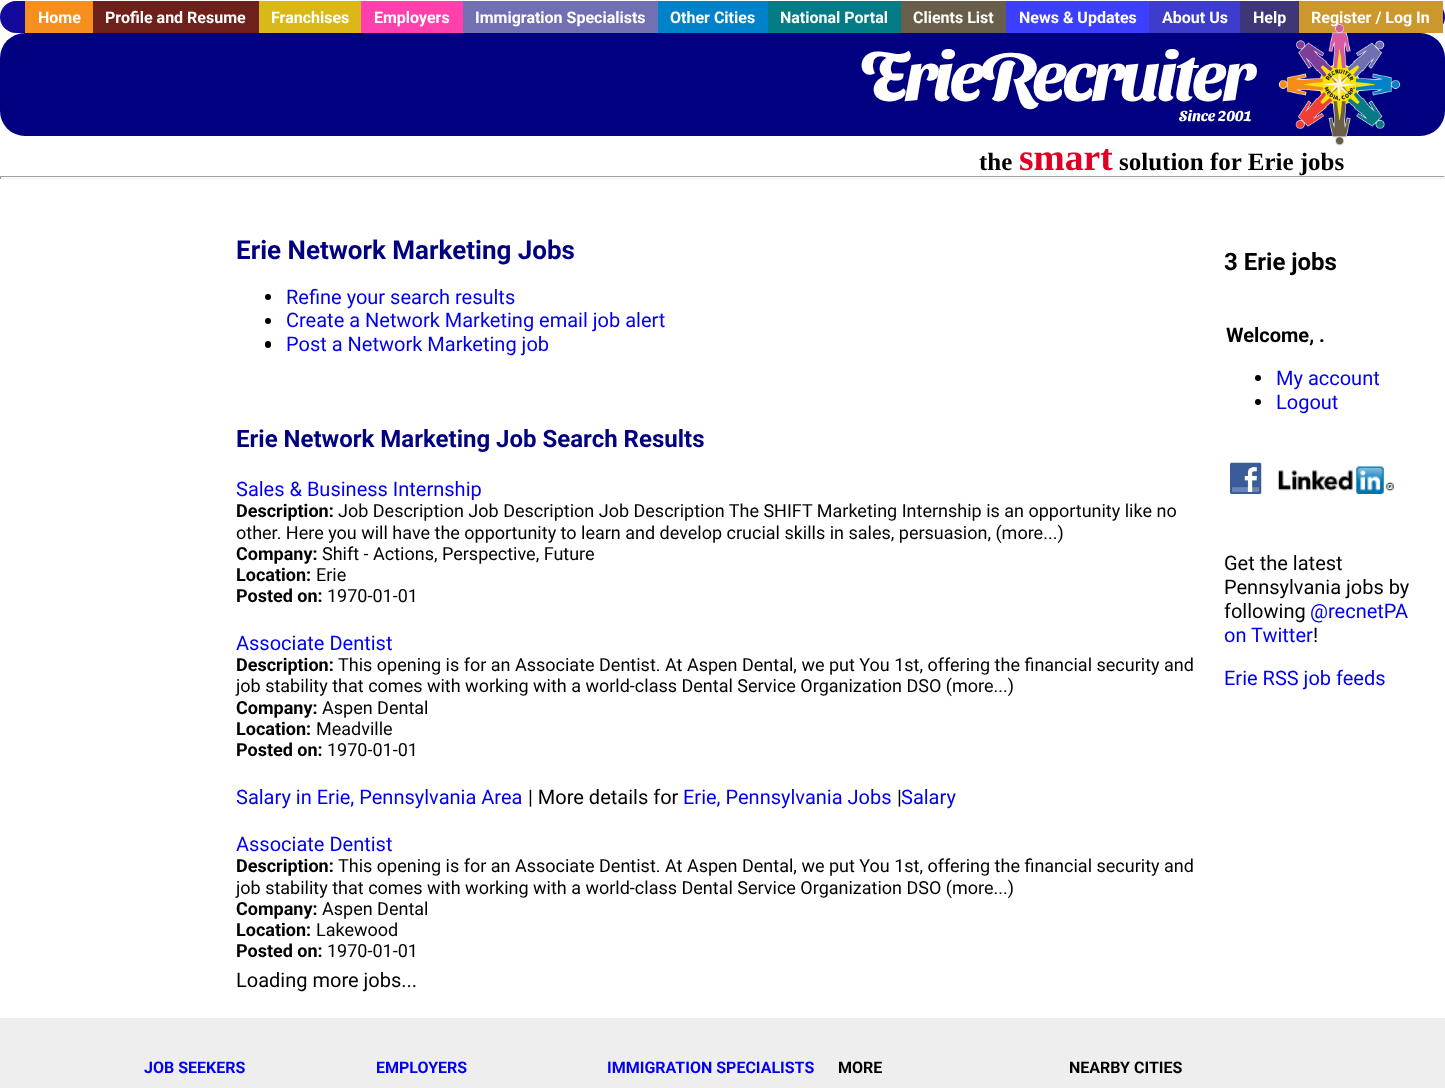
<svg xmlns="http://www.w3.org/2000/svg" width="1445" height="1088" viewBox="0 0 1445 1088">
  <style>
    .t1 { font: bold 16px Roboto; fill: #fff; }
    .t2 { font: bold 68.75px Sansita Swashed; letter-spacing: -3.75px; fill: #fff; }
    .t3 { font: bold 15px Sansita Swashed; fill: #fff; }
    .t4 { font: bold 25px Liberation Serif; fill: #000; }
    .t5 { font: bold 37.5px Liberation Serif; fill: #de0025; }
    .t6 { font: bold 26px Roboto; fill: #000080; }
    .t7 { font: 20px Roboto; fill: #00e; }
    .t8 { font: bold 24px Roboto; fill: #000080; }
    .t9 { font: bold 18px Roboto; fill: #000; }
    .t10 { font: 18px Roboto; fill: #000; }
    .t11 { font: 20px Roboto; fill: #000; }
    .t12 { font: bold 24px Roboto; fill: #000; }
    .t13 { font: bold 20px Roboto; fill: #000; }
    .t14 { font: bold 16px Roboto; fill: #00e; }
    .t15 { font: bold 16px Roboto; fill: #000; }
  </style>
  <rect width="100%" height="100%" fill="#fff"/>
  <rect x="0" y="1" width="1445" height="32" rx="16" fill="#13099a"/>
  <rect x="25" y="1" width="68" height="32" fill="#f68f1d"/>
  <text x="38" y="23" class="t1">Home</text>
  <rect x="93" y="1" width="166" height="32" fill="#6e201b"/>
  <text x="105" y="23" class="t1">Profile and Resume</text>
  <rect x="259" y="1" width="102" height="32" fill="#d9b817"/>
  <text x="271" y="23" class="t1">Franchises</text>
  <rect x="361" y="1" width="102" height="32" fill="#ff40ad"/>
  <text x="374" y="23" class="t1">Employers</text>
  <rect x="463" y="1" width="195" height="32" fill="#7170b3"/>
  <text x="475" y="23" class="t1">Immigration Specialists</text>
  <rect x="658" y="1" width="110" height="32" fill="#0082c8"/>
  <text x="670" y="23" class="t1">Other Cities</text>
  <rect x="768" y="1" width="133" height="32" fill="#037c85"/>
  <text x="780" y="23" class="t1">National Portal</text>
  <rect x="901" y="1" width="105" height="32" fill="#695e49"/>
  <text x="913" y="23" class="t1">Clients List</text>
  <rect x="1006" y="1" width="143" height="32" fill="#3d3fff"/>
  <text x="1019" y="23" class="t1">News &amp; Updates</text>
  <rect x="1149" y="1" width="91" height="32" fill="#3d3ccc"/>
  <text x="1162" y="23" class="t1">About Us</text>
  <rect x="1240" y="1" width="59" height="32" fill="#3d3777"/>
  <text x="1253" y="23" class="t1">Help</text>
  <rect x="1299" y="1" width="144" height="32" fill="#cc982d"/>
  <text x="1311" y="23" class="t1">Register / Log In</text>
  <rect x="0" y="33" width="1445" height="103" rx="25" fill="#000080"/>
  <text x="859" y="100" class="t2">ErieRecruiter</text>
  <text x="1179" y="121" class="t3">Since 2001</text>
  <image x="1278" y="23" width="123" height="123" href="images/1.png"/>
  <text x="979" y="170" class="t4">the</text>
  <text x="1019" y="170" class="t5">smart</text>
  <text x="1119" y="170" class="t4">solution for Erie jobs</text>
  <rect x="0" y="176" width="1445" height="1" fill="#9f9f9f"/>
  <rect x="1444" y="176" width="1" height="3" fill="#eee"/>
  <rect x="0" y="178" width="1445" height="1" fill="#eee"/>
  <rect x="0" y="176" width="1" height="3" fill="#9f9f9f"/>
  <text x="236" y="259" class="t6">Erie Network Marketing Jobs</text>
  <circle cx="268" cy="297" r="3" fill="#000"/>
  <text x="286" y="304" class="t7">Refine your search results</text>
  <circle cx="268" cy="321" r="3" fill="#000"/>
  <text x="286" y="327" class="t7">Create a Network Marketing email job alert</text>
  <rect x="265" y="341" width="6" height="7" rx="3" fill="#000"/>
  <text x="286" y="351" class="t7">Post a Network Marketing job</text>
  <text x="236" y="447" class="t8">Erie Network Marketing Job Search Results</text>
  <text x="236" y="496" class="t7">Sales &amp; Business Internship</text>
  <text x="236" y="517" class="t9">Description:</text>
  <text x="338" y="517" class="t10">Job Description Job Description Job Description The SHIFT Marketing Internship is an opportunity like no</text>
  <text x="236" y="539" class="t10">other. Here you will have the opportunity to learn and develop crucial skills in sales, persuasion, (more...)</text>
  <text x="236" y="560" class="t9">Company:</text>
  <text x="322" y="560" class="t10">Shift - Actions, Perspective, Future</text>
  <text x="236" y="581" class="t9">Location:</text>
  <text x="316" y="581" class="t10">Erie</text>
  <text x="236" y="602" class="t9">Posted on:</text>
  <text x="327" y="602" class="t10">1970-01-01</text>
  <text x="236" y="650" class="t7">Associate Dentist</text>
  <text x="236" y="671" class="t9">Description:</text>
  <text x="338" y="671" class="t10">This opening is for an Associate Dentist. At Aspen Dental, we put You 1st, offering the financial security and</text>
  <text x="236" y="692" class="t10">job stability that comes with working with a world-class Dental Service Organization DSO (more...)</text>
  <text x="236" y="714" class="t9">Company:</text>
  <text x="322" y="714" class="t10">Aspen Dental</text>
  <text x="236" y="735" class="t9">Location:</text>
  <text x="316" y="735" class="t10">Meadville</text>
  <text x="236" y="756" class="t9">Posted on:</text>
  <text x="327" y="756" class="t10">1970-01-01</text>
  <text x="236" y="804" class="t7">Salary in Erie, Pennsylvania Area</text>
  <text x="528" y="804" class="t11">| More details for</text>
  <text x="683" y="804" class="t7">Erie, Pennsylvania Jobs</text>
  <text x="897" y="804" class="t11">|</text>
  <text x="901" y="804" class="t7">Salary</text>
  <text x="236" y="851" class="t7">Associate Dentist</text>
  <text x="236" y="872" class="t9">Description:</text>
  <text x="338" y="872" class="t10">This opening is for an Associate Dentist. At Aspen Dental, we put You 1st, offering the financial security and</text>
  <text x="236" y="894" class="t10">job stability that comes with working with a world-class Dental Service Organization DSO (more...)</text>
  <text x="236" y="915" class="t9">Company:</text>
  <text x="322" y="915" class="t10">Aspen Dental</text>
  <text x="236" y="936" class="t9">Location:</text>
  <text x="316" y="936" class="t10">Lakewood</text>
  <text x="236" y="957" class="t9">Posted on:</text>
  <text x="327" y="957" class="t10">1970-01-01</text>
  <text x="236" y="987" class="t11">Loading more jobs...</text>
  <text x="1224" y="270" class="t12">3 Erie jobs</text>
  <text x="1226" y="342" class="t13">Welcome, .</text>
  <circle cx="1258" cy="378" r="3" fill="#000"/>
  <text x="1276" y="385" class="t7">My account</text>
  <circle cx="1258" cy="402" r="3" fill="#000"/>
  <text x="1276" y="409" class="t7">Logout</text>
  <image x="1230" y="462" width="32" height="32" href="images/2.png"/>
  <image x="1278" y="466" width="116" height="28" href="images/3.png"/>
  <text x="1224" y="570" class="t11">Get the latest</text>
  <text x="1224" y="594" class="t11">Pennsylvania jobs by</text>
  <text x="1224" y="618" class="t11">following</text>
  <text x="1310" y="618" class="t7">@recnetPA</text>
  <text x="1224" y="642" class="t7">on Twitter</text>
  <text x="1313" y="642" class="t11">!</text>
  <text x="1224" y="685" class="t7">Erie RSS job feeds</text>
  <rect x="0" y="1018" width="1445" height="70" fill="#eee"/>
  <text x="144" y="1073" class="t14">JOB SEEKERS</text>
  <text x="376" y="1073" class="t14">EMPLOYERS</text>
  <text x="607" y="1073" class="t14">IMMIGRATION SPECIALISTS</text>
  <text x="838" y="1073" class="t15">MORE</text>
  <text x="1069" y="1073" class="t15">NEARBY CITIES</text>
</svg>
